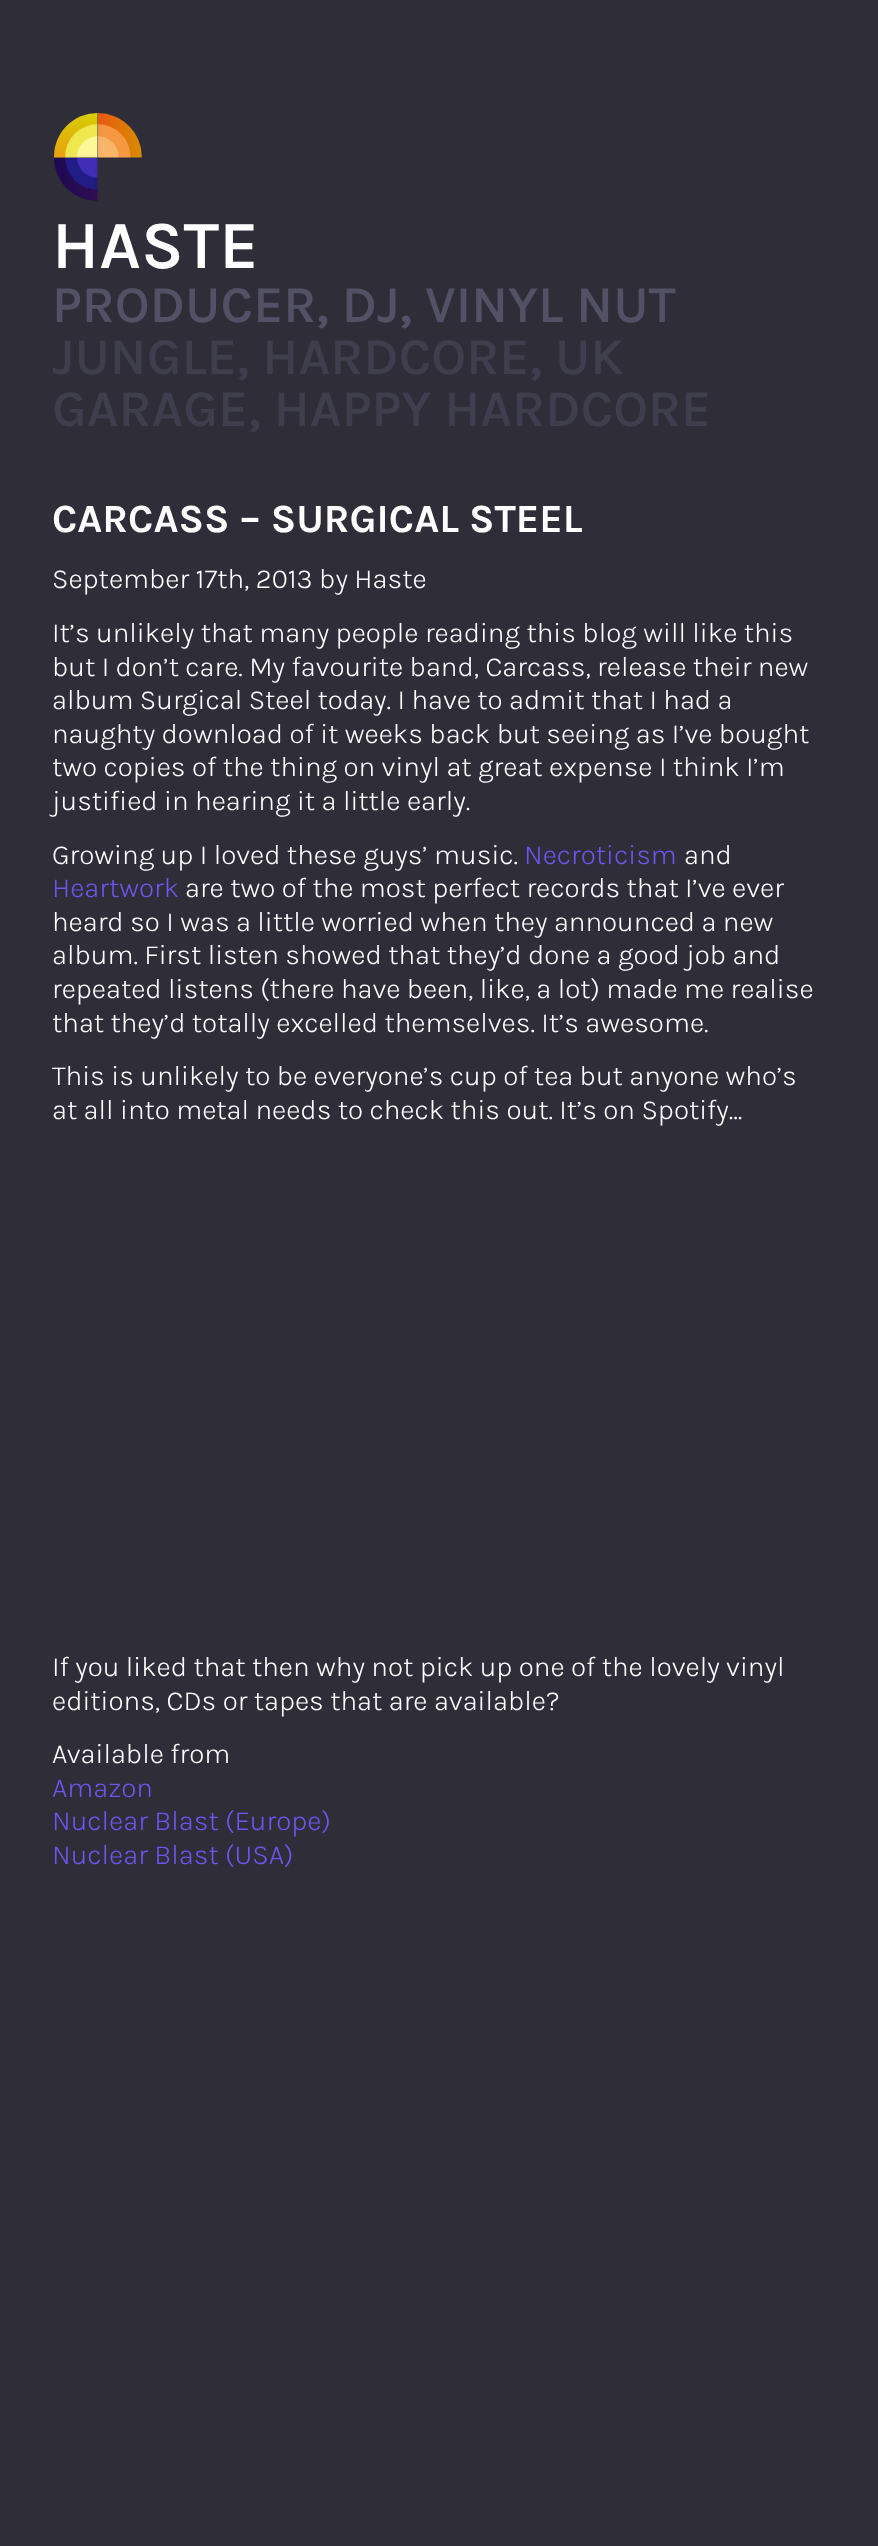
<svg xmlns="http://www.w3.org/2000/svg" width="878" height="2546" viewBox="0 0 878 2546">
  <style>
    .t1 { font: 600 68px Karla; fill: #fff; }
    .t2 { font: 600 52px Karla; fill: #525165; }
    .t3 { font: 600 52px Karla; fill: #3e3e4d; }
    .t4 { font: bold 40px Karla; fill: #fff; }
    .t5 { font: 300 28px Karla; fill: #fff; }
    .t6 { font: 300 28px Karla; fill: #6c56f0; }
  </style>
  <rect width="100%" height="100%" fill="#2e2d38"/>
  <image x="54" y="113" width="88" height="88" href="images/1.png"/>
  <text x="52" y="268" class="t1">HASTE</text>
  <text x="52" y="322" class="t2">PRODUCER, DJ, VINYL NUT</text>
  <text x="52" y="374" class="t3">JUNGLE, HARDCORE, UK</text>
  <text x="52" y="426" class="t3">GARAGE, HAPPY HARDCORE</text>
  <text x="52" y="532" class="t4">CARCASS – SURGICAL STEEL</text>
  <text x="52" y="588" class="t5">September 17th, 2013 by Haste</text>
  <text x="52" y="642" class="t5">It’s unlikely that many people reading this blog will like this</text>
  <text x="52" y="676" class="t5">but I don’t care. My favourite band, Carcass, release their new</text>
  <text x="52" y="709" class="t5">album Surgical Steel today. I have to admit that I had a</text>
  <text x="52" y="743" class="t5">naughty download of it weeks back but seeing as I’ve bought</text>
  <text x="52" y="776" class="t5">two copies of the thing on vinyl at great expense I think I’m</text>
  <text x="52" y="810" class="t5">justified in hearing it a little early.</text>
  <text x="52" y="864" class="t5">Growing up I loved these guys’ music.</text>
  <text x="524" y="864" class="t6">Necroticism</text>
  <text x="684" y="864" class="t5">and</text>
  <text x="52" y="897" class="t6">Heartwork</text>
  <text x="185" y="897" class="t5">are two of the most perfect records that I’ve ever</text>
  <text x="52" y="931" class="t5">heard so I was a little worried when they announced a new</text>
  <text x="52" y="964" class="t5">album. First listen showed that they’d done a good job and</text>
  <text x="52" y="998" class="t5">repeated listens (there have been, like, a lot) made me realise</text>
  <text x="52" y="1032" class="t5">that they’d totally excelled themselves. It’s awesome.</text>
  <text x="52" y="1085" class="t5">This is unlikely to be everyone’s cup of tea but anyone who’s</text>
  <text x="52" y="1119" class="t5">at all into metal needs to check this out. It’s on Spotify…</text>
  <text x="52" y="1676" class="t5">If you liked that then why not pick up one of the lovely vinyl</text>
  <text x="52" y="1710" class="t5">editions, CDs or tapes that are available?</text>
  <text x="52" y="1763" class="t5">Available from</text>
  <text x="52" y="1797" class="t6">Amazon</text>
  <text x="52" y="1830" class="t6">Nuclear Blast (Europe)</text>
  <text x="52" y="1864" class="t6">Nuclear Blast (USA)</text>
</svg>
